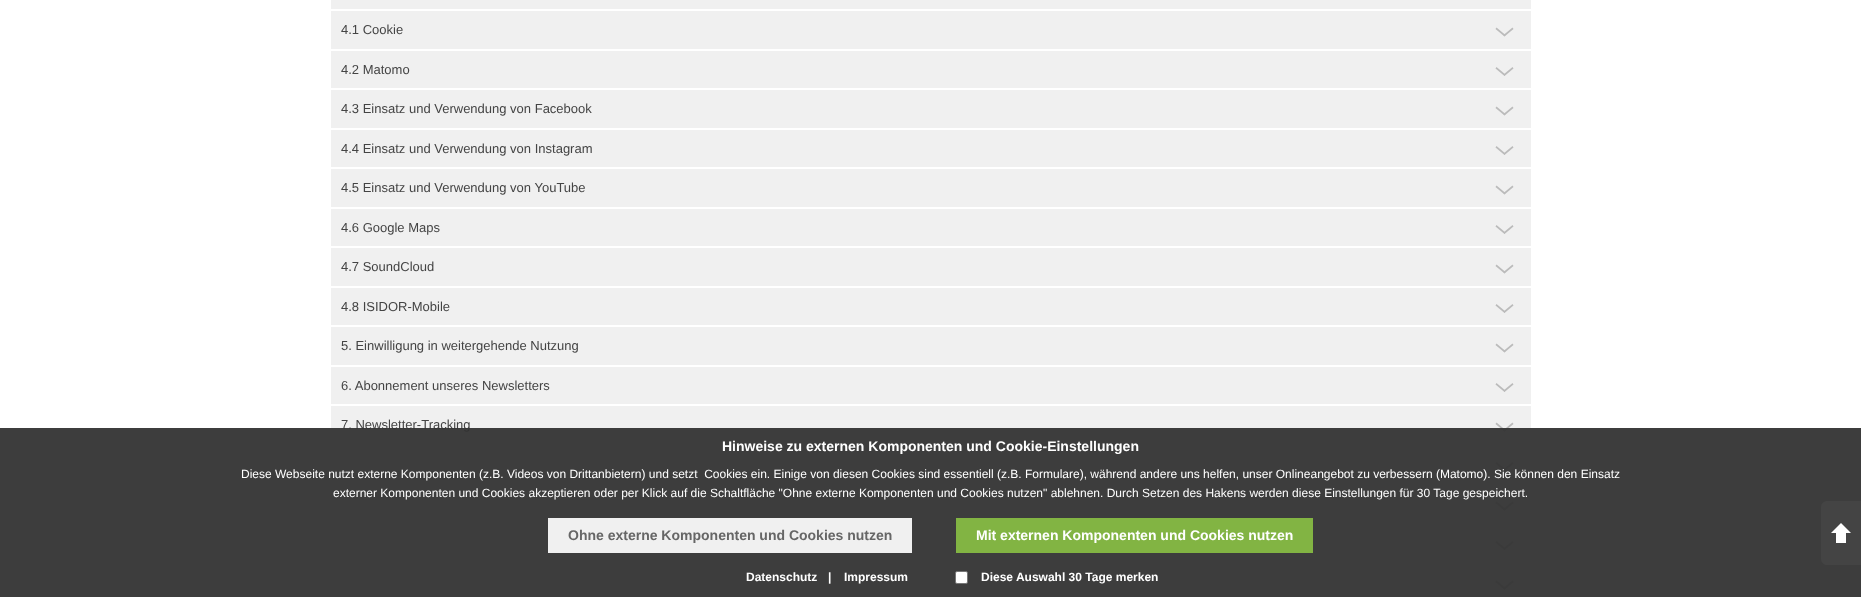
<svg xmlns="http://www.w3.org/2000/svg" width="1861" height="597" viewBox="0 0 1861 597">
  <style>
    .t1 { font: 13px Liberation Sans; fill: #444; }
    .t2 { font: bold 14px Liberation Sans; fill: #fff; }
    .t3 { font: 12px Liberation Sans; fill: #fff; }
    .t4 { font: bold 14px Liberation Sans; fill: #666; }
    .t5 { font: bold 12px Liberation Sans; fill: #fff; }
  </style>
  <rect width="100%" height="100%" fill="#fff"/>
  <rect x="331" y="0" width="1200" height="9" fill="#f0f0f0"/>
  <rect x="331" y="11" width="1200" height="38" fill="#f0f0f0"/>
  <text x="341" y="34" class="t1">4.1 Cookie</text>
  <path d="M1496.5 27.5L1505.5 35L1504.5 36.5L1495.5 29Z" fill="#bbb"/>
  <path d="M1503.5 35L1512.5 27.5L1513.5 29L1504.5 36.5Z" fill="#bbb"/>
  <rect x="331" y="51" width="1200" height="37" fill="#f0f0f0"/>
  <text x="341" y="74" class="t1">4.2 Matomo</text>
  <path d="M1496.5 67L1505.5 74.5L1504.5 76L1495.5 68.5Z" fill="#bbb"/>
  <path d="M1503.5 74.5L1512.5 67L1513.5 68.5L1504.5 76Z" fill="#bbb"/>
  <rect x="331" y="90" width="1200" height="38" fill="#f0f0f0"/>
  <text x="341" y="113" class="t1">4.3 Einsatz und Verwendung von Facebook</text>
  <path d="M1496.5 106.5L1505.5 114L1504.5 115.5L1495.5 108Z" fill="#bbb"/>
  <path d="M1503.5 114L1512.5 106.5L1513.5 108L1504.5 115.5Z" fill="#bbb"/>
  <rect x="331" y="130" width="1200" height="37" fill="#f0f0f0"/>
  <text x="341" y="153" class="t1">4.4 Einsatz und Verwendung von Instagram</text>
  <path d="M1496.5 146L1505.5 153.5L1504.5 155L1495.5 147.5Z" fill="#bbb"/>
  <path d="M1503.5 153.5L1512.5 146L1513.5 147.5L1504.5 155Z" fill="#bbb"/>
  <rect x="331" y="169" width="1200" height="38" fill="#f0f0f0"/>
  <text x="341" y="192" class="t1">4.5 Einsatz und Verwendung von YouTube</text>
  <path d="M1496.5 185.5L1505.5 193L1504.5 194.5L1495.5 187Z" fill="#bbb"/>
  <path d="M1503.5 193L1512.5 185.5L1513.5 187L1504.5 194.5Z" fill="#bbb"/>
  <rect x="331" y="209" width="1200" height="37" fill="#f0f0f0"/>
  <text x="341" y="232" class="t1">4.6 Google Maps</text>
  <path d="M1496.5 225L1505.5 232.5L1504.5 234L1495.5 226.5Z" fill="#bbb"/>
  <path d="M1503.5 232.5L1512.5 225L1513.5 226.5L1504.5 234Z" fill="#bbb"/>
  <rect x="331" y="248" width="1200" height="38" fill="#f0f0f0"/>
  <text x="341" y="271" class="t1">4.7 SoundCloud</text>
  <path d="M1496.5 264.5L1505.5 272L1504.5 273.5L1495.5 266Z" fill="#bbb"/>
  <path d="M1503.5 272L1512.5 264.5L1513.5 266L1504.5 273.5Z" fill="#bbb"/>
  <rect x="331" y="288" width="1200" height="37" fill="#f0f0f0"/>
  <text x="341" y="311" class="t1">4.8 ISIDOR-Mobile</text>
  <path d="M1496.5 304L1505.5 311.5L1504.5 313L1495.5 305.5Z" fill="#bbb"/>
  <path d="M1503.5 311.5L1512.5 304L1513.5 305.5L1504.5 313Z" fill="#bbb"/>
  <rect x="331" y="327" width="1200" height="38" fill="#f0f0f0"/>
  <text x="341" y="350" class="t1">5. Einwilligung in weitergehende Nutzung</text>
  <path d="M1496.5 343.5L1505.5 351L1504.5 352.5L1495.5 345Z" fill="#bbb"/>
  <path d="M1503.5 351L1512.5 343.5L1513.5 345L1504.5 352.5Z" fill="#bbb"/>
  <rect x="331" y="367" width="1200" height="37" fill="#f0f0f0"/>
  <text x="341" y="390" class="t1">6. Abonnement unseres Newsletters</text>
  <path d="M1496.5 383L1505.5 390.5L1504.5 392L1495.5 384.5Z" fill="#bbb"/>
  <path d="M1503.5 390.5L1512.5 383L1513.5 384.5L1504.5 392Z" fill="#bbb"/>
  <rect x="331" y="406" width="1200" height="38" fill="#f0f0f0"/>
  <text x="341" y="429" class="t1">7. Newsletter-Tracking</text>
  <path d="M1496.5 422.5L1505.5 430L1504.5 431.5L1495.5 424Z" fill="#bbb"/>
  <path d="M1503.5 430L1512.5 422.5L1513.5 424L1504.5 431.5Z" fill="#bbb"/>
  <rect x="331" y="446" width="1200" height="37" fill="#f0f0f0"/>
  <path d="M1496.5 462L1505.5 469.5L1504.5 471L1495.5 463.5Z" fill="#bbb"/>
  <path d="M1503.5 469.5L1512.5 462L1513.5 463.5L1504.5 471Z" fill="#bbb"/>
  <rect x="331" y="485" width="1200" height="38" fill="#f0f0f0"/>
  <path d="M1496.5 501.5L1505.5 509L1504.5 510.5L1495.5 503Z" fill="#bbb"/>
  <path d="M1503.5 509L1512.5 501.5L1513.5 503L1504.5 510.5Z" fill="#bbb"/>
  <rect x="331" y="525" width="1200" height="37" fill="#f0f0f0"/>
  <path d="M1496.5 541L1505.5 548.5L1504.5 550L1495.5 542.5Z" fill="#bbb"/>
  <path d="M1503.5 548.5L1512.5 541L1513.5 542.5L1504.5 550Z" fill="#bbb"/>
  <rect x="331" y="564" width="1200" height="33" fill="#f0f0f0"/>
  <path d="M1496.5 580.5L1505.5 588L1504.5 589.5L1495.5 582Z" fill="#bbb"/>
  <path d="M1503.5 588L1512.5 580.5L1513.5 582L1504.5 589.5Z" fill="#bbb"/>
  <rect x="0" y="428" width="1861" height="169" fill="#333333f2"/>
  <text x="722" y="451" class="t2">Hinweise zu externen Komponenten und Cookie-Einstellungen</text>
  <text x="241" y="478" class="t3" xml:space="preserve">Diese Webseite nutzt externe Komponenten (z.B. Videos von Drittanbietern) und setzt  Cookies ein. Einige von diesen Cookies sind essentiell (z.B. Formulare), während andere uns helfen, unser Onlineangebot zu verbessern (Matomo). Sie können den Einsatz</text>
  <text x="333" y="497" class="t3">externer Komponenten und Cookies akzeptieren oder per Klick auf die Schaltfläche "Ohne externe Komponenten und Cookies nutzen" ablehnen. Durch Setzen des Hakens werden diese Einstellungen für 30 Tage gespeichert.</text>
  <rect x="548" y="518" width="364" height="35" fill="#f0f0f0"/>
  <text x="568" y="540" class="t4">Ohne externe Komponenten und Cookies nutzen</text>
  <rect x="956" y="518" width="357" height="35" fill="#82b443"/>
  <text x="976" y="540" class="t2">Mit externen Komponenten und Cookies nutzen</text>
  <text x="746" y="581" class="t5">Datenschutz</text>
  <text x="828" y="581" class="t5">|</text>
  <text x="844" y="581" class="t5">Impressum</text>
  <rect x="955.5" y="571.5" width="12" height="12" rx="1.5" fill="#fff" stroke="#767676"/>
  <text x="981" y="581" class="t5">Diese Auswahl 30 Tage merken</text>
  <path d="M1827 501H1861V565H1827C1823.5 565 1821 562.5 1821 559V507C1821 503.5 1823.5 501 1827 501Z" fill="#444"/>
  <path d="M1851 533H1831L1841 523Z" fill="#fff"/>
  <rect x="1836" y="533" width="10" height="10" fill="#fff"/>
</svg>
